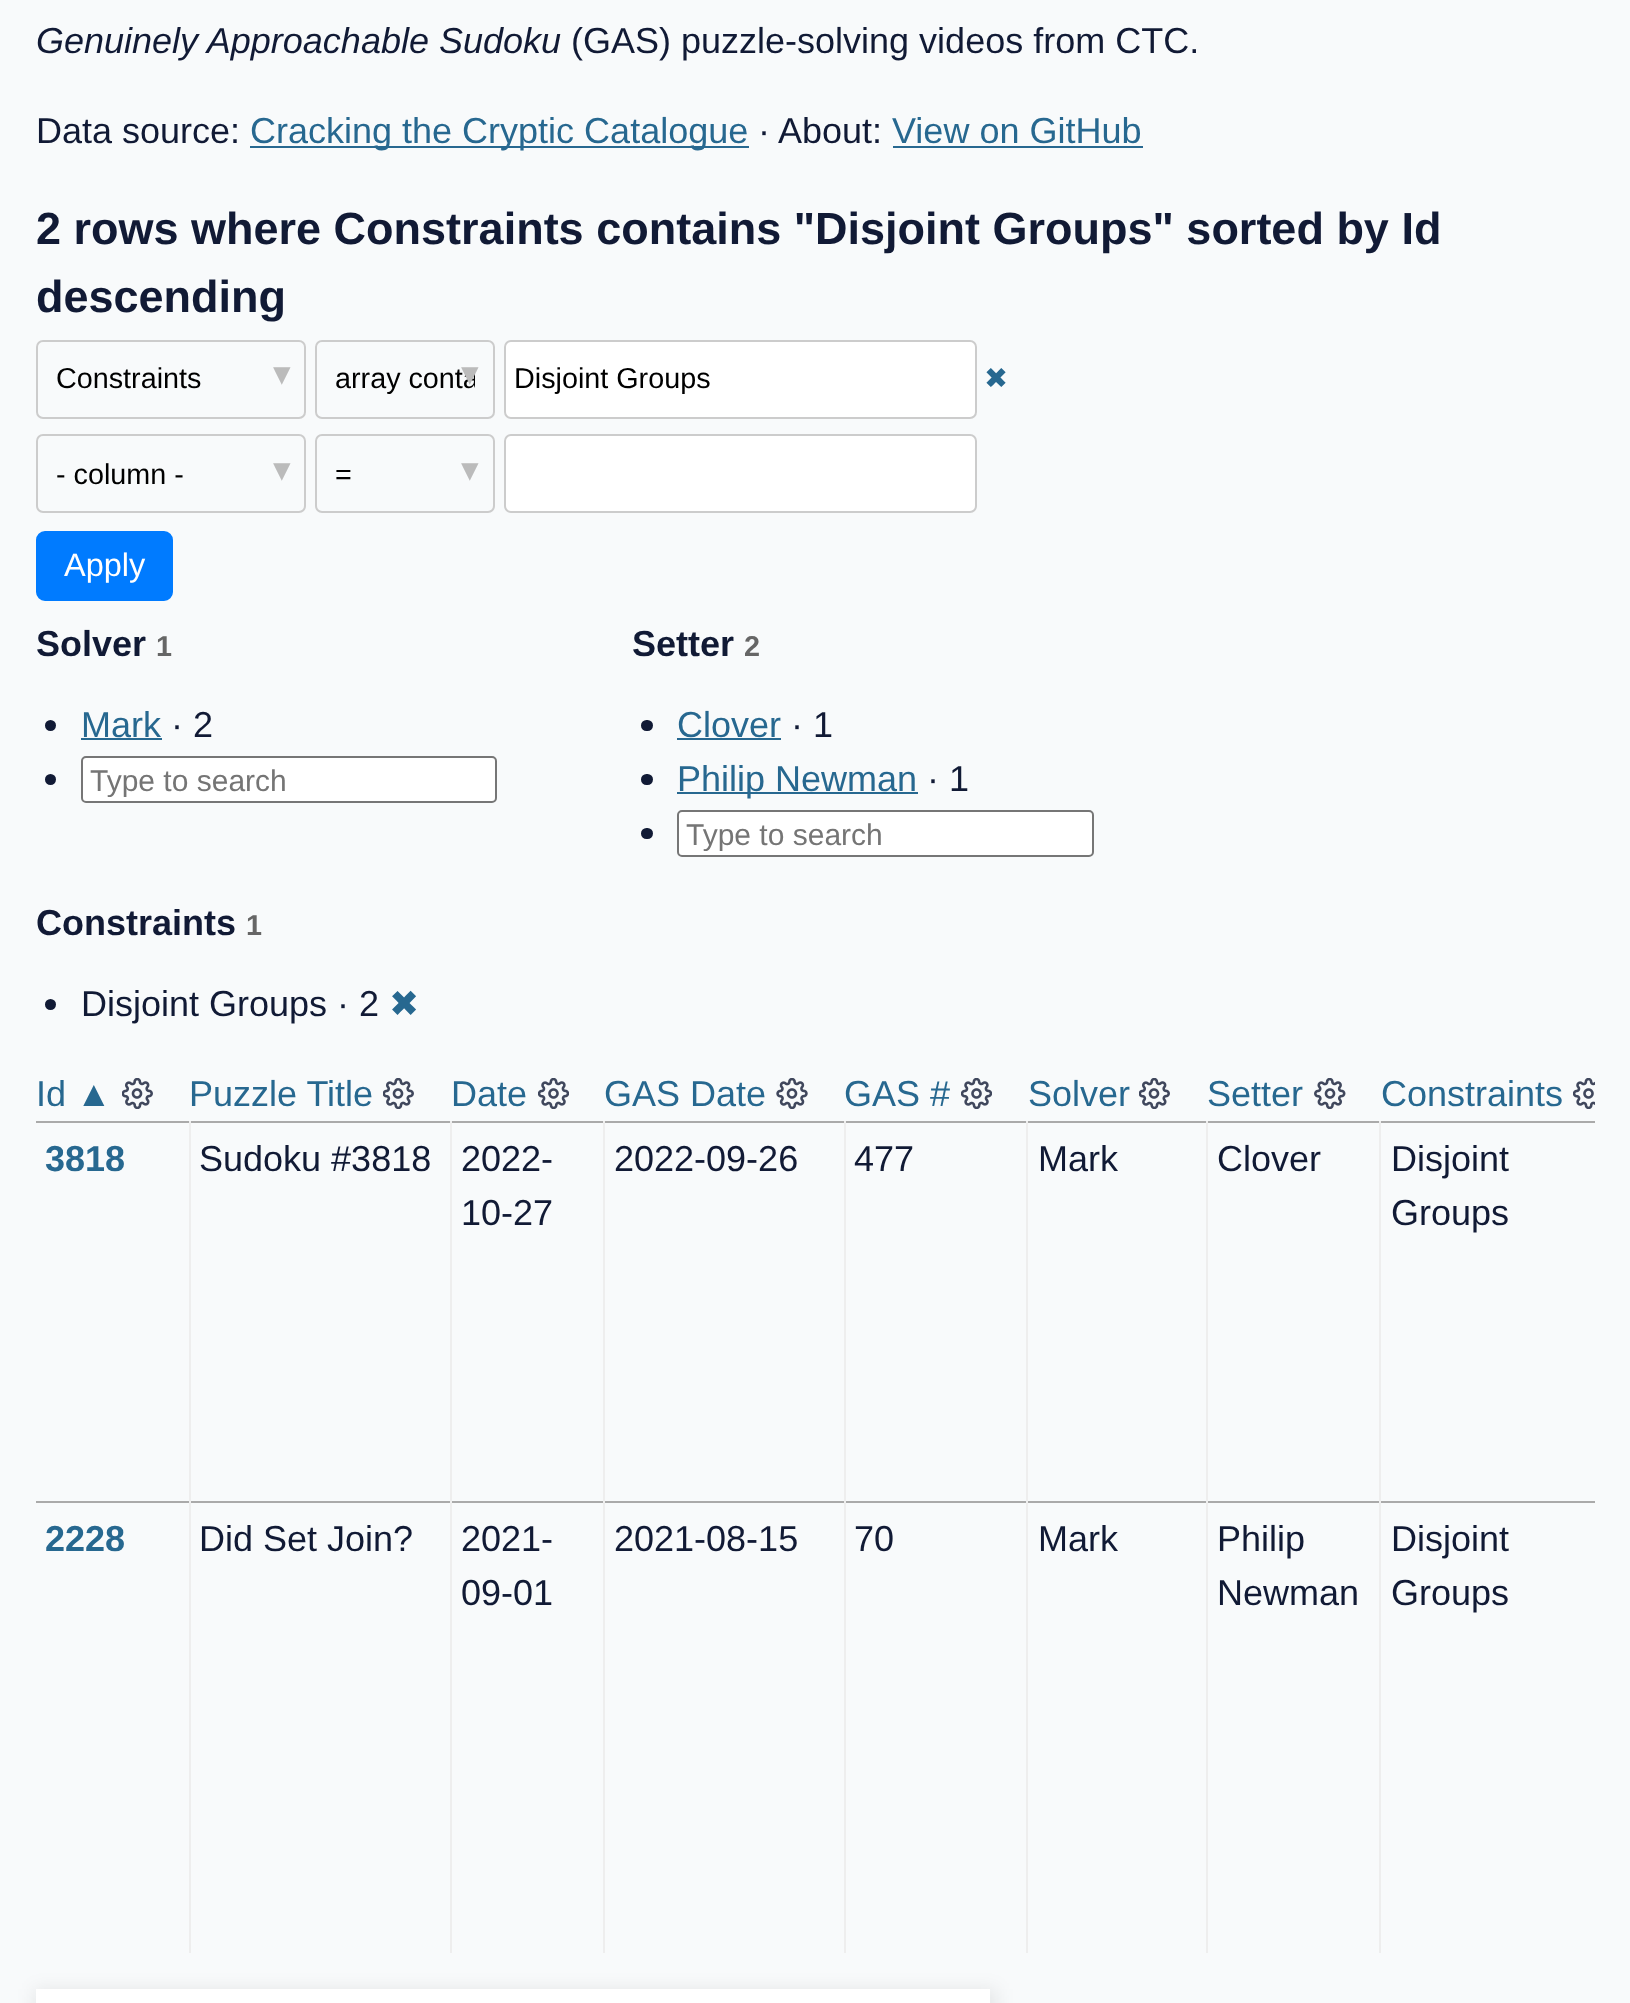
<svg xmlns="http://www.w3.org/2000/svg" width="1630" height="2003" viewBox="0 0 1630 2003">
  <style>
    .t1 { font: italic 36px Liberation Sans; fill: #111a35; }
    .t2 { font: 36px Liberation Sans; fill: #111a35; }
    .t3 { font: 36px Liberation Sans; fill: #276890; }
    .t4 { font: bold 45px Liberation Sans; fill: #111a35; }
    .t5 { font: 28.75px Liberation Sans; fill: #000; }
    .t6 { font: 35px DejaVu Sans; fill: #bbb; }
    .t7 { font: 28.75px DejaVu Sans; fill: #276890; }
    .t8 { font: 32.5px Liberation Sans; fill: #fff; }
    .t9 { font: bold 36px Liberation Sans; fill: #111a35; }
    .t10 { font: bold 28.75px Liberation Sans; fill: #666; }
    .t11 { font: 30px Liberation Sans; fill: #757575; }
    .t12 { font: 36px DejaVu Sans; fill: #276890; }
    .t13 { font: bold 36px Liberation Sans; fill: #276890; }
  </style>
  <defs>
    <clipPath id="clip1"><rect x="335" y="362" width="140" height="34"/></clipPath>
    <clipPath id="clip2"><rect x="90" y="763" width="358" height="34"/></clipPath>
    <clipPath id="clip3"><rect x="686" y="817" width="358" height="34"/></clipPath>
  </defs>
  <rect width="100%" height="100%" fill="#f8fafb"/>
  <text x="36" y="53" class="t1">Genuinely Approachable Sudoku</text>
  <text x="571" y="53" class="t2">(GAS) puzzle-solving videos from CTC.</text>
  <text x="36" y="143" class="t2">Data source:</text>
  <rect x="250" y="146" width="499" height="2" fill="#276890"/>
  <text x="250" y="143" class="t3">Cracking the Cryptic Catalogue</text>
  <text x="758" y="143" class="t2">·</text>
  <text x="778" y="143" class="t2">About:</text>
  <text x="892" y="143" class="t3">View on GitHub</text>
  <rect x="893" y="146" width="250" height="2" fill="#276890"/>
  <text x="36" y="244" class="t4">2 rows where Constraints contains "Disjoint Groups" sorted by Id</text>
  <text x="36" y="312" class="t4">descending</text>
  <rect x="37" y="341" width="268" height="77" rx="6" fill="none" stroke="#ccc" stroke-width="2"/>
  <text x="56" y="388" class="t5">Constraints</text>
  <text x="273" y="385" class="t6">▾</text>
  <rect x="316" y="341" width="178" height="77" rx="6" fill="none" stroke="#ccc" stroke-width="2"/>
  <g clip-path="url(#clip1)">
    <text x="335" y="388" class="t5">array conta</text>
  </g>
  <text x="461" y="385" class="t6">▾</text>
  <rect x="505" y="341" width="471" height="77" rx="6" fill="#fff" stroke="#ccc" stroke-width="2"/>
  <text x="514" y="388" class="t5">Disjoint Groups</text>
  <text x="984" y="388" class="t7">✖</text>
  <rect x="37" y="435" width="268" height="77" rx="6" fill="none" stroke="#ccc" stroke-width="2"/>
  <text x="56" y="484" class="t5">- column -</text>
  <text x="273" y="481" class="t6">▾</text>
  <rect x="316" y="435" width="178" height="77" rx="6" fill="none" stroke="#ccc" stroke-width="2"/>
  <text x="335" y="484" class="t5">=</text>
  <text x="461" y="481" class="t6">▾</text>
  <rect x="505" y="435" width="471" height="77" rx="6" fill="#fff" stroke="#ccc" stroke-width="2"/>
  <rect x="37" y="532" width="135" height="68" rx="8" fill="#007bff" stroke="#007bff" stroke-width="2"/>
  <text x="64" y="576" class="t8">Apply</text>
  <text x="36" y="656" class="t9">Solver</text>
  <text x="156" y="656" class="t10">1</text>
  <circle cx="50.5" cy="725.5" r="5.5" fill="#111a35"/>
  <text x="81" y="737" class="t3">Mark</text>
  <rect x="81" y="738" width="81" height="2" fill="#276890"/>
  <text x="171" y="737" class="t2">· 2</text>
  <circle cx="50.5" cy="779.5" r="5.5" fill="#111a35"/>
  <rect x="82" y="757" width="414" height="45" rx="4" fill="#fff" stroke="#767676" stroke-width="2"/>
  <g clip-path="url(#clip2)">
    <text x="90" y="791" class="t11">Type to search</text>
  </g>
  <text x="632" y="656" class="t9">Setter</text>
  <text x="744" y="656" class="t10">2</text>
  <rect x="641" y="720" width="12" height="11" rx="5.5" fill="#111a35"/>
  <text x="677" y="737" class="t3">Clover</text>
  <rect x="677" y="738" width="104" height="2" fill="#276890"/>
  <text x="791" y="737" class="t2">· 1</text>
  <rect x="641" y="774" width="12" height="11" rx="5.5" fill="#111a35"/>
  <rect x="677" y="792" width="241" height="2" fill="#276890"/>
  <text x="677" y="791" class="t3">Philip Newman</text>
  <text x="927" y="791" class="t2">· 1</text>
  <rect x="641" y="828" width="12" height="11" rx="5.5" fill="#111a35"/>
  <rect x="678" y="811" width="415" height="45" rx="4" fill="#fff" stroke="#767676" stroke-width="2"/>
  <g clip-path="url(#clip3)">
    <text x="686" y="845" class="t11">Type to search</text>
  </g>
  <text x="36" y="935" class="t9">Constraints</text>
  <text x="246" y="935" class="t10">1</text>
  <circle cx="50.5" cy="1004.5" r="5.5" fill="#111a35"/>
  <text x="81" y="1016" class="t2">Disjoint Groups · 2</text>
  <text x="389" y="1016" class="t12">✖</text>
  <text x="36" y="1106" class="t3">Id ▲</text>
  <image x="122" y="1078" width="31" height="31" href="images/1.png"/>
  <text x="189" y="1106" class="t3">Puzzle Title</text>
  <image x="383" y="1078" width="31" height="31" href="images/1.png"/>
  <text x="451" y="1106" class="t3">Date</text>
  <image x="538" y="1078" width="31" height="31" href="images/2.png"/>
  <text x="604" y="1106" class="t3">GAS Date</text>
  <image x="776" y="1078" width="32" height="31" href="images/3.png"/>
  <text x="844" y="1106" class="t3">GAS #</text>
  <image x="961" y="1078" width="31" height="31" href="images/2.png"/>
  <text x="1028" y="1106" class="t3">Solver</text>
  <image x="1139" y="1078" width="31" height="31" href="images/1.png"/>
  <text x="1207" y="1106" class="t3">Setter</text>
  <image x="1314" y="1078" width="32" height="31" href="images/4.png"/>
  <text x="1381" y="1106" class="t3">Constraints</text>
  <image x="1573" y="1078" width="22" height="31" href="images/5.png"/>
  <rect x="36" y="1121" width="1559" height="2" fill="#aaa"/>
  <rect x="36" y="1501" width="1559" height="2" fill="#aaa"/>
  <rect x="189" y="1501" width="2" height="452" fill="#eee"/>
  <rect x="189" y="1121" width="2" height="382" fill="#eee"/>
  <text x="45" y="1171" class="t13">3818</text>
  <rect x="450" y="1501" width="2" height="452" fill="#eee"/>
  <rect x="450" y="1121" width="2" height="382" fill="#eee"/>
  <text x="199" y="1171" class="t2">Sudoku #3818</text>
  <rect x="603" y="1501" width="2" height="452" fill="#eee"/>
  <rect x="603" y="1121" width="2" height="382" fill="#eee"/>
  <text x="461" y="1171" class="t2">2022-</text>
  <text x="461" y="1225" class="t2">10-27</text>
  <rect x="844" y="1501" width="2" height="452" fill="#eee"/>
  <rect x="844" y="1121" width="2" height="382" fill="#eee"/>
  <text x="614" y="1171" class="t2">2022-09-26</text>
  <rect x="1026" y="1501" width="2" height="452" fill="#eee"/>
  <rect x="1026" y="1121" width="2" height="382" fill="#eee"/>
  <text x="854" y="1171" class="t2">477</text>
  <rect x="1206" y="1501" width="2" height="452" fill="#eee"/>
  <rect x="1206" y="1121" width="2" height="382" fill="#eee"/>
  <text x="1038" y="1171" class="t2">Mark</text>
  <rect x="1379" y="1501" width="2" height="452" fill="#eee"/>
  <rect x="1379" y="1121" width="2" height="382" fill="#eee"/>
  <text x="1217" y="1171" class="t2">Clover</text>
  <text x="1391" y="1171" class="t2">Disjoint</text>
  <text x="1391" y="1225" class="t2">Groups</text>
  <text x="45" y="1551" class="t13">2228</text>
  <text x="199" y="1551" class="t2">Did Set Join?</text>
  <text x="461" y="1551" class="t2">2021-</text>
  <text x="461" y="1605" class="t2">09-01</text>
  <text x="614" y="1551" class="t2">2021-08-15</text>
  <text x="854" y="1551" class="t2">70</text>
  <text x="1038" y="1551" class="t2">Mark</text>
  <text x="1217" y="1551" class="t2">Philip</text>
  <text x="1217" y="1605" class="t2">Newman</text>
  <text x="1391" y="1551" class="t2">Disjoint</text>
  <text x="1391" y="1605" class="t2">Groups</text>
  <rect x="34" y="1989" width="963" height="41" fill="#00000014" filter="blur(9px)"/>
  <rect x="36" y="1989" width="954" height="14" fill="#fff"/>
</svg>
